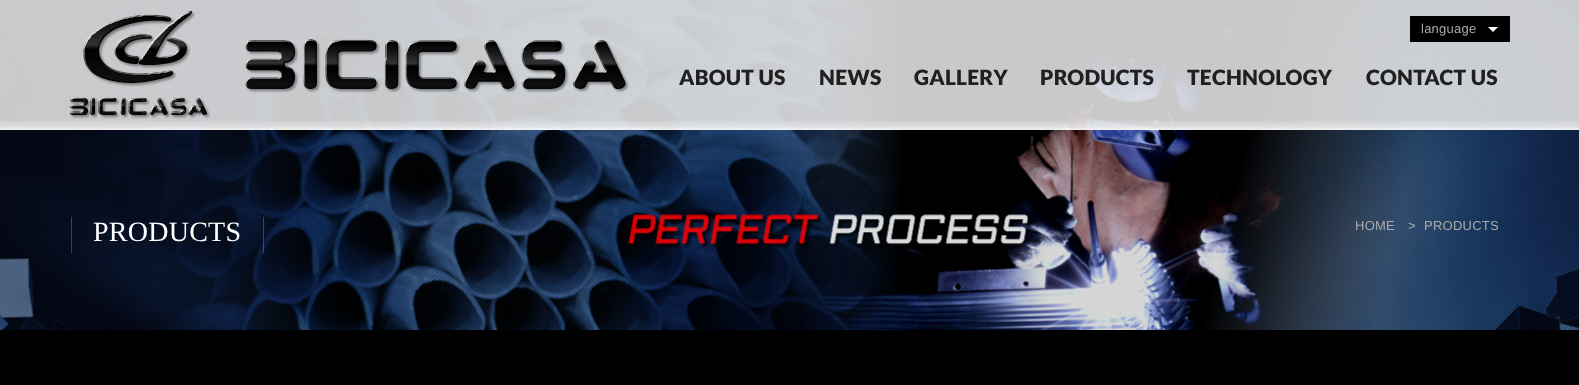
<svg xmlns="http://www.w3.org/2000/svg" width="1579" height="385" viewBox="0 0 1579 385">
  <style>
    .t1 { font: 13px Liberation Sans; letter-spacing: 0.25px; fill: #aaa; }
    .t2 { font: 900 21px Lato; letter-spacing: 0.25px; fill: #202020; }
    .t3 { font: 28px Liberation Serif; letter-spacing: 0.25px; fill: #fff; }
  </style>
  <rect width="100%" height="100%" fill="#000"/>
  <image x="0" y="0" width="1579" height="330" href="images/3.png"/>
  <rect x="0" y="0" width="1579" height="130" fill="#e7e7e7de"/>
  <image x="0" y="120" width="1579" height="10" href="images/1.png"/>
  <image x="70" y="11" width="559" height="108" href="images/2.png"/>
  <rect x="1410" y="16" width="100" height="26" fill="#000"/>
  <text x="1421" y="33" class="t1">language</text>
  <path d="M1488 27H1498L1493 32Z" fill="#fff"/>
  <text x="679" y="85" class="t2">ABOUT US</text>
  <text x="819" y="85" class="t2">NEWS</text>
  <text x="914" y="85" class="t2">GALLERY</text>
  <text x="1040" y="85" class="t2">PRODUCTS</text>
  <text x="1187" y="85" class="t2">TECHNOLOGY</text>
  <text x="1366" y="85" class="t2">CONTACT US</text>
  <rect x="71" y="217" width="1" height="36" fill="#bbbbbb4d"/>
  <text x="93" y="241" class="t3">PRODUCTS</text>
  <rect x="263" y="217" width="1" height="36" fill="#bbbbbb4d"/>
  <text x="1355" y="230" class="t1">HOME</text>
  <text x="1408" y="230" class="t1">&gt;</text>
  <text x="1424" y="230" class="t1">PRODUCTS</text>
</svg>
